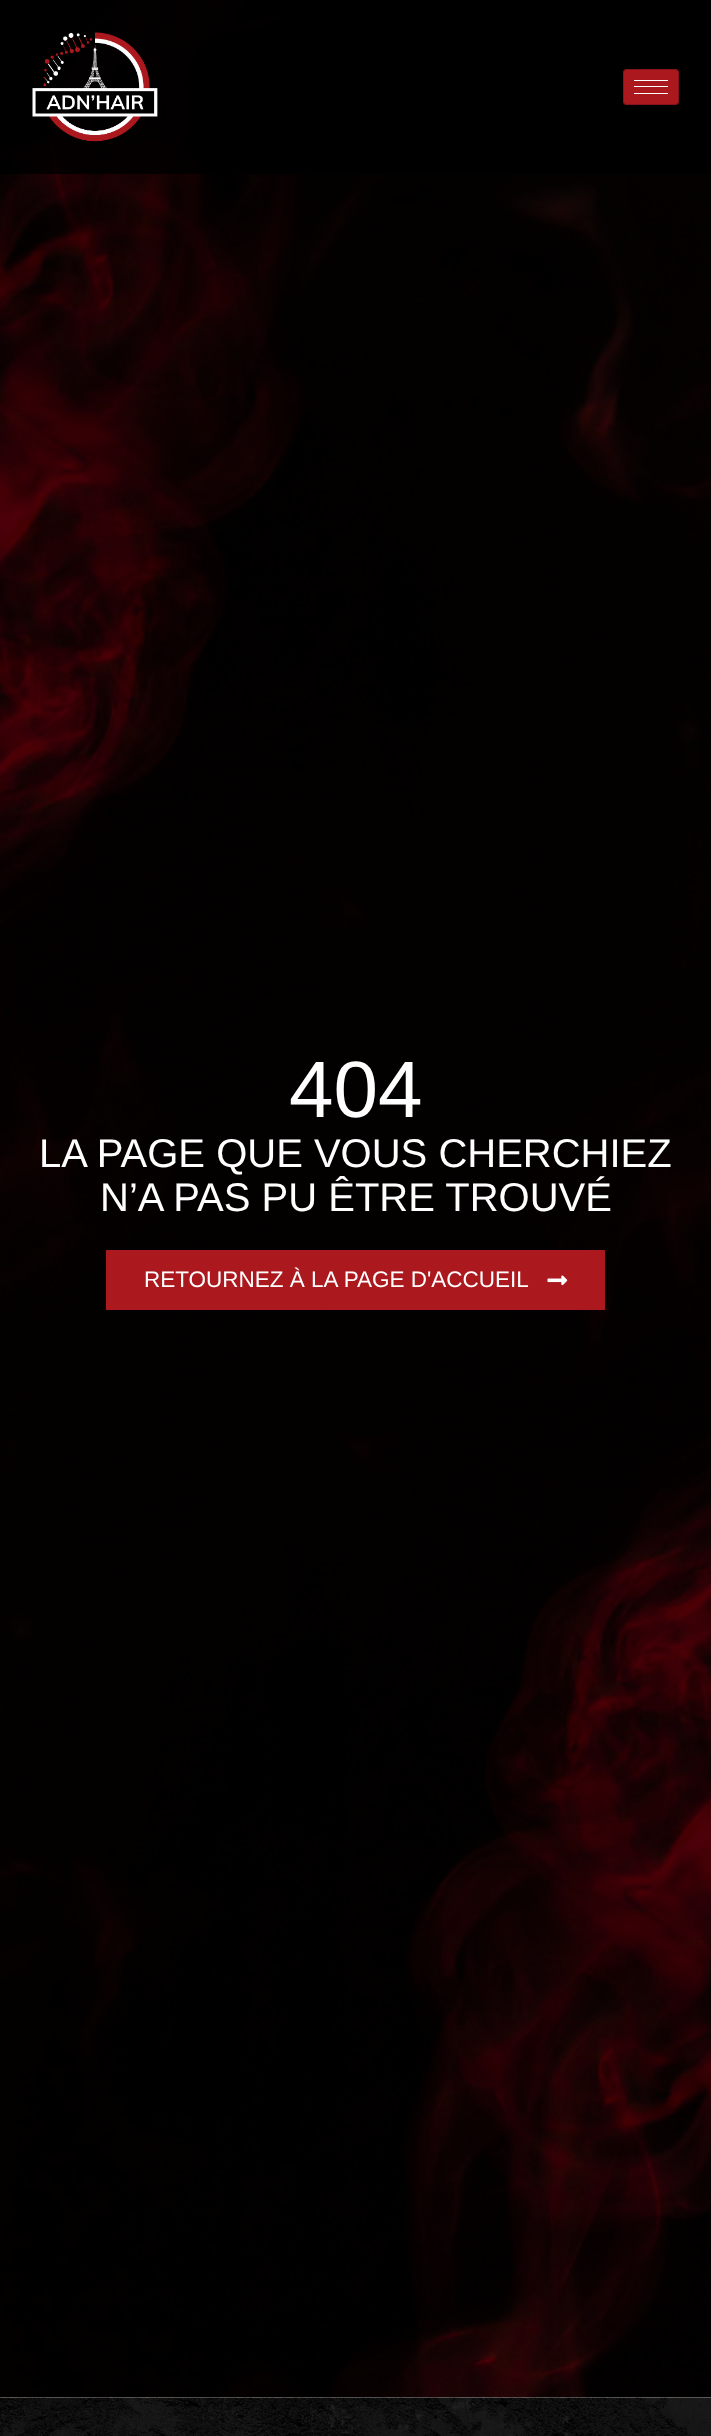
<svg xmlns="http://www.w3.org/2000/svg" width="711" height="2436" viewBox="0 0 711 2436">
  <style>
    .t1 { font: 80px Liberation Sans; fill: #fff; }
    .t2 { font: 40px Liberation Sans; fill: #fff; }
    .t3 { font: 22.5px Liberation Sans; fill: #fff; }
  </style>
  <rect width="100%" height="100%" fill="#fff"/>
  <image x="0" y="0" width="711" height="2398" href="images/2.png"/>
  <rect x="0" y="0" width="711" height="174" fill="#000000d1"/>
  <image x="32" y="32" width="126" height="110" href="images/1.png"/>
  <rect x="623" y="69" width="56" height="36" rx="4" fill="#ab191e"/>
  <rect x="623.5" y="69.5" width="55" height="35" rx="3.5" fill="none" stroke="#00000033"/>
  <rect x="634" y="80" width="34" height="1" fill="#fff"/>
  <rect x="634" y="86" width="34" height="1" fill="#fff"/>
  <rect x="634" y="93" width="34" height="1" fill="#fff"/>
  <text x="289" y="1117" class="t1">404</text>
  <text x="39" y="1167" class="t2">LA PAGE QUE VOUS CHERCHIEZ</text>
  <text x="100" y="1211" class="t2">N’A PAS PU ÊTRE TROUVÉ</text>
  <rect x="106" y="1250" width="499" height="60" fill="#ab191e"/>
  <text x="144" y="1287" class="t3">RETOURNEZ À LA PAGE D'ACCUEIL</text>
  <image x="547" y="1275" width="21" height="11" href="images/3.png"/>
  <image x="0" y="2397" width="711" height="39" href="images/4.png"/>
</svg>
